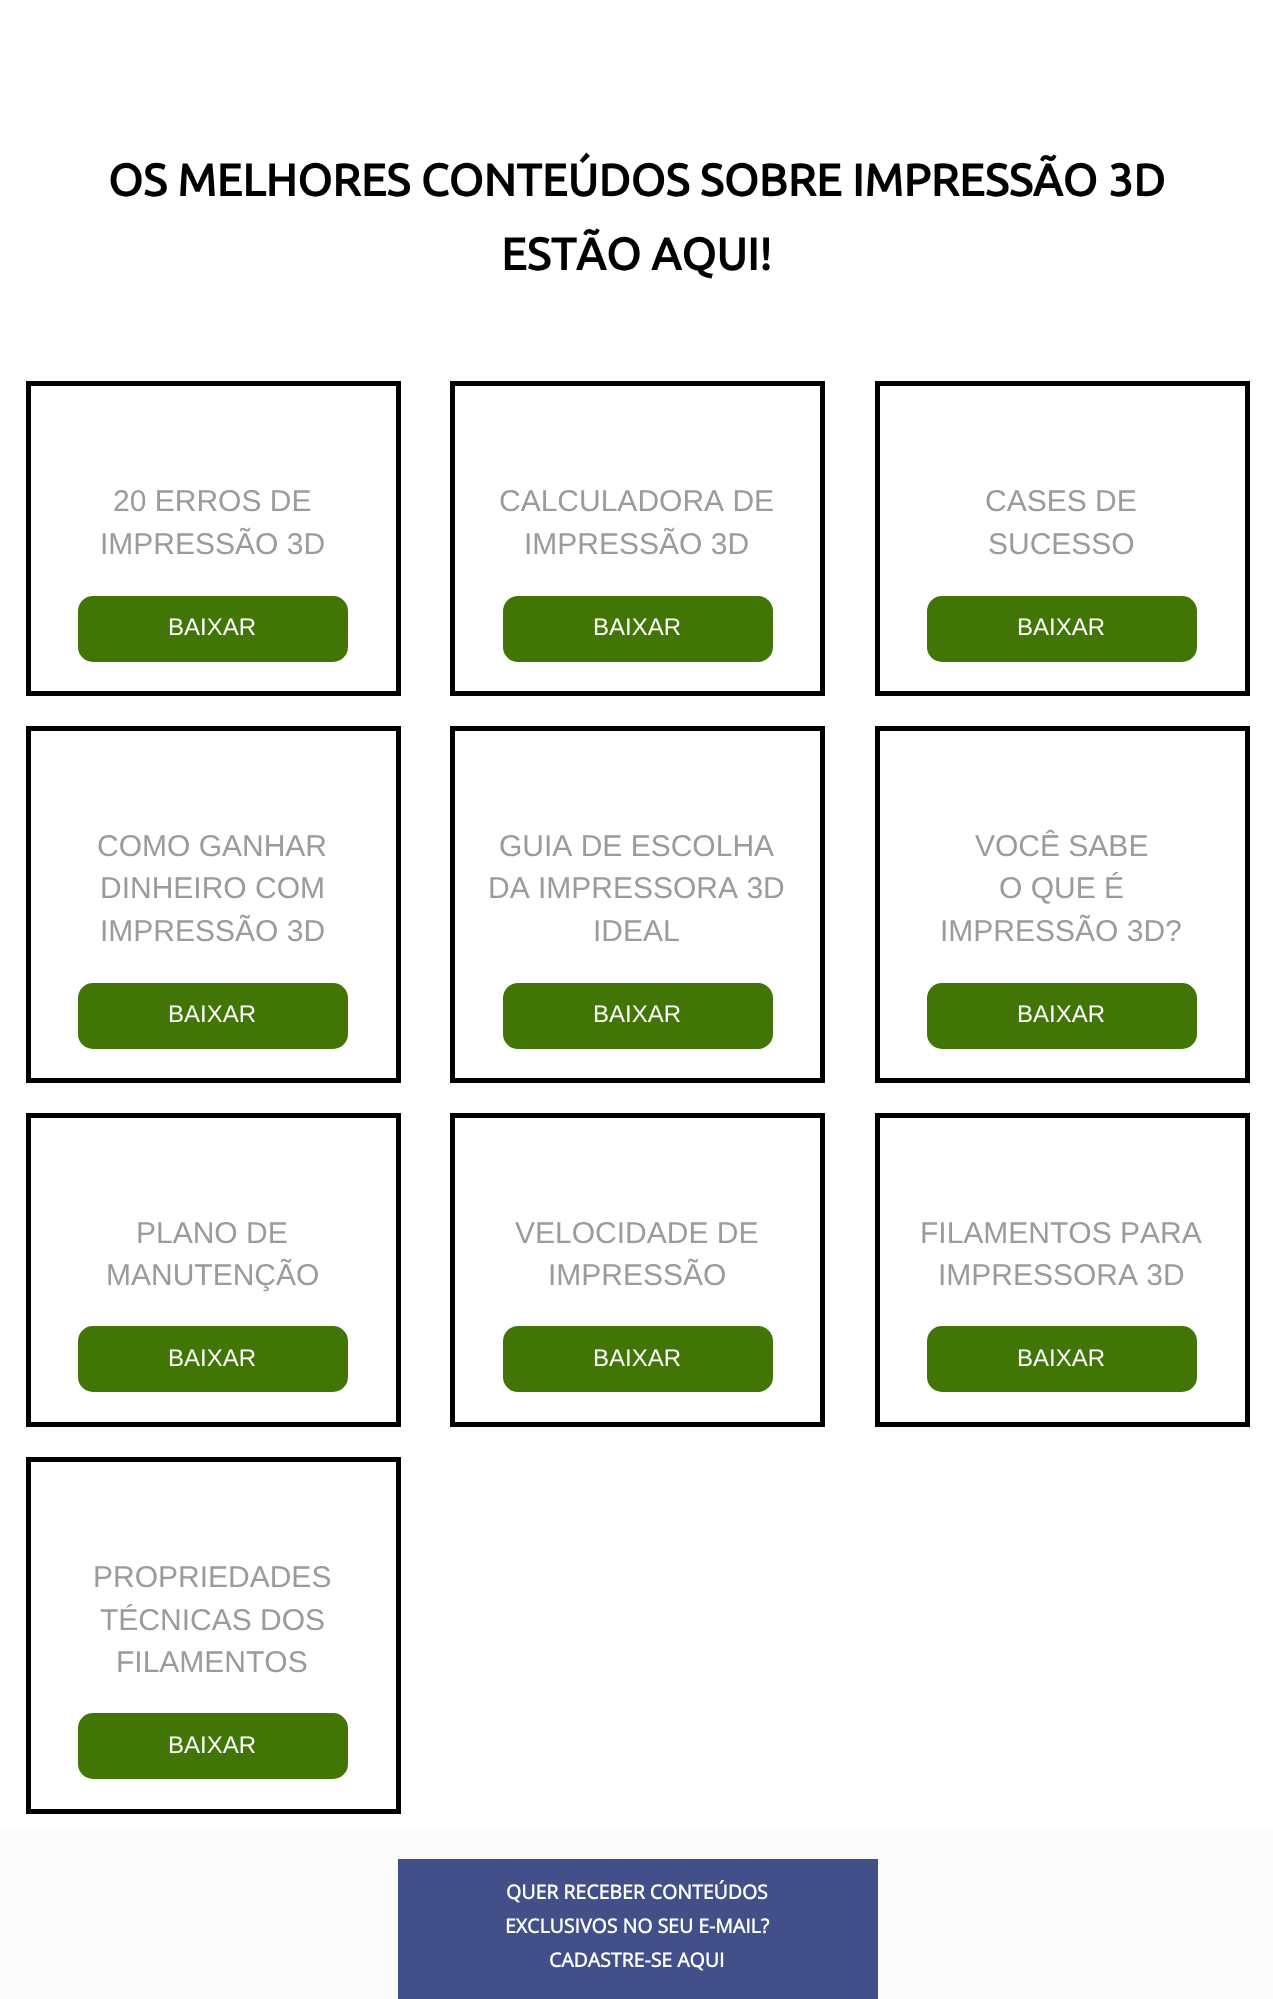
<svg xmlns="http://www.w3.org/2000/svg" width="1273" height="1999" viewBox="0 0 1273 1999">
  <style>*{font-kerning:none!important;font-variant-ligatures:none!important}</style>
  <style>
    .t1 { font: bold 45px Ubuntu; fill: #000; }
    .t2 { font: 30px Liberation Sans; fill: #9b9b9b; }
    .t3 { font: 24px Liberation Sans; fill: #fff; }
    .t4 { font: bold 19.5px Open Sans; fill: #fff; }
  </style>
  <rect width="100%" height="100%" fill="#fff"/>
  <text x="108" y="196" class="t1">OS MELHORES CONTEÚDOS SOBRE IMPRESSÃO 3D</text>
  <text x="501" y="270" class="t1">ESTÃO AQUI!</text>
  <rect x="28.5" y="383.5" width="370" height="310" fill="none" stroke="#000" stroke-width="5"/>
  <text x="113" y="511" class="t2">20 ERROS DE</text>
  <text x="100" y="554" class="t2">IMPRESSÃO 3D</text>
  <rect x="78" y="596" width="270" height="66" rx="15" fill="#417505"/>
  <text x="168" y="635" class="t3">BAIXAR</text>
  <rect x="452.5" y="383.5" width="370" height="310" fill="none" stroke="#000" stroke-width="5"/>
  <text x="499" y="511" class="t2">CALCULADORA DE</text>
  <text x="524" y="554" class="t2">IMPRESSÃO 3D</text>
  <rect x="503" y="596" width="270" height="66" rx="15" fill="#417505"/>
  <text x="593" y="635" class="t3">BAIXAR</text>
  <rect x="877.5" y="383.5" width="370" height="310" fill="none" stroke="#000" stroke-width="5"/>
  <text x="985" y="511" class="t2">CASES DE</text>
  <text x="988" y="554" class="t2">SUCESSO</text>
  <rect x="927" y="596" width="270" height="66" rx="15" fill="#417505"/>
  <text x="1017" y="635" class="t3">BAIXAR</text>
  <rect x="28.5" y="728.5" width="370" height="352" fill="none" stroke="#000" stroke-width="5"/>
  <text x="97" y="856" class="t2">COMO GANHAR</text>
  <text x="100" y="898" class="t2">DINHEIRO COM</text>
  <text x="100" y="941" class="t2">IMPRESSÃO 3D</text>
  <rect x="78" y="983" width="270" height="66" rx="15" fill="#417505"/>
  <text x="168" y="1022" class="t3">BAIXAR</text>
  <rect x="452.5" y="728.5" width="370" height="352" fill="none" stroke="#000" stroke-width="5"/>
  <text x="499" y="856" class="t2">GUIA DE ESCOLHA</text>
  <text x="488" y="898" class="t2">DA IMPRESSORA 3D</text>
  <text x="593" y="941" class="t2">IDEAL</text>
  <rect x="503" y="983" width="270" height="66" rx="15" fill="#417505"/>
  <text x="593" y="1022" class="t3">BAIXAR</text>
  <rect x="877.5" y="728.5" width="370" height="352" fill="none" stroke="#000" stroke-width="5"/>
  <text x="975" y="856" class="t2">VOCÊ SABE</text>
  <text x="999" y="898" class="t2">O QUE É</text>
  <text x="940" y="941" class="t2">IMPRESSÃO 3D?</text>
  <rect x="927" y="983" width="270" height="66" rx="15" fill="#417505"/>
  <text x="1017" y="1022" class="t3">BAIXAR</text>
  <rect x="28.5" y="1115.5" width="370" height="309" fill="none" stroke="#000" stroke-width="5"/>
  <text x="136" y="1243" class="t2">PLANO DE</text>
  <text x="106" y="1285" class="t2">MANUTENÇÃO</text>
  <rect x="78" y="1326" width="270" height="66" rx="15" fill="#417505"/>
  <text x="168" y="1366" class="t3">BAIXAR</text>
  <rect x="452.5" y="1115.5" width="370" height="309" fill="none" stroke="#000" stroke-width="5"/>
  <text x="515" y="1243" class="t2">VELOCIDADE DE</text>
  <text x="548" y="1285" class="t2">IMPRESSÃO</text>
  <rect x="503" y="1326" width="270" height="66" rx="15" fill="#417505"/>
  <text x="593" y="1366" class="t3">BAIXAR</text>
  <rect x="877.5" y="1115.5" width="370" height="309" fill="none" stroke="#000" stroke-width="5"/>
  <text x="920" y="1243" class="t2">FILAMENTOS PARA</text>
  <text x="938" y="1285" class="t2">IMPRESSORA 3D</text>
  <rect x="927" y="1326" width="270" height="66" rx="15" fill="#417505"/>
  <text x="1017" y="1366" class="t3">BAIXAR</text>
  <rect x="28.5" y="1459.5" width="370" height="352" fill="none" stroke="#000" stroke-width="5"/>
  <text x="93" y="1587" class="t2">PROPRIEDADES</text>
  <text x="100" y="1630" class="t2">TÉCNICAS DOS</text>
  <text x="116" y="1672" class="t2">FILAMENTOS</text>
  <rect x="78" y="1713" width="270" height="66" rx="15" fill="#417505"/>
  <text x="168" y="1753" class="t3">BAIXAR</text>
  <rect x="0" y="1829" width="1273" height="170" fill="#fcfcfc"/>
  <rect x="398" y="1859" width="480" height="140" fill="#424f88"/>
  <text x="506" y="1899" class="t4">QUER RECEBER CONTEÚDOS</text>
  <text x="505" y="1933" class="t4">EXCLUSIVOS NO SEU E-MAIL?</text>
  <text x="549" y="1967" class="t4">CADASTRE-SE AQUI</text>
</svg>
